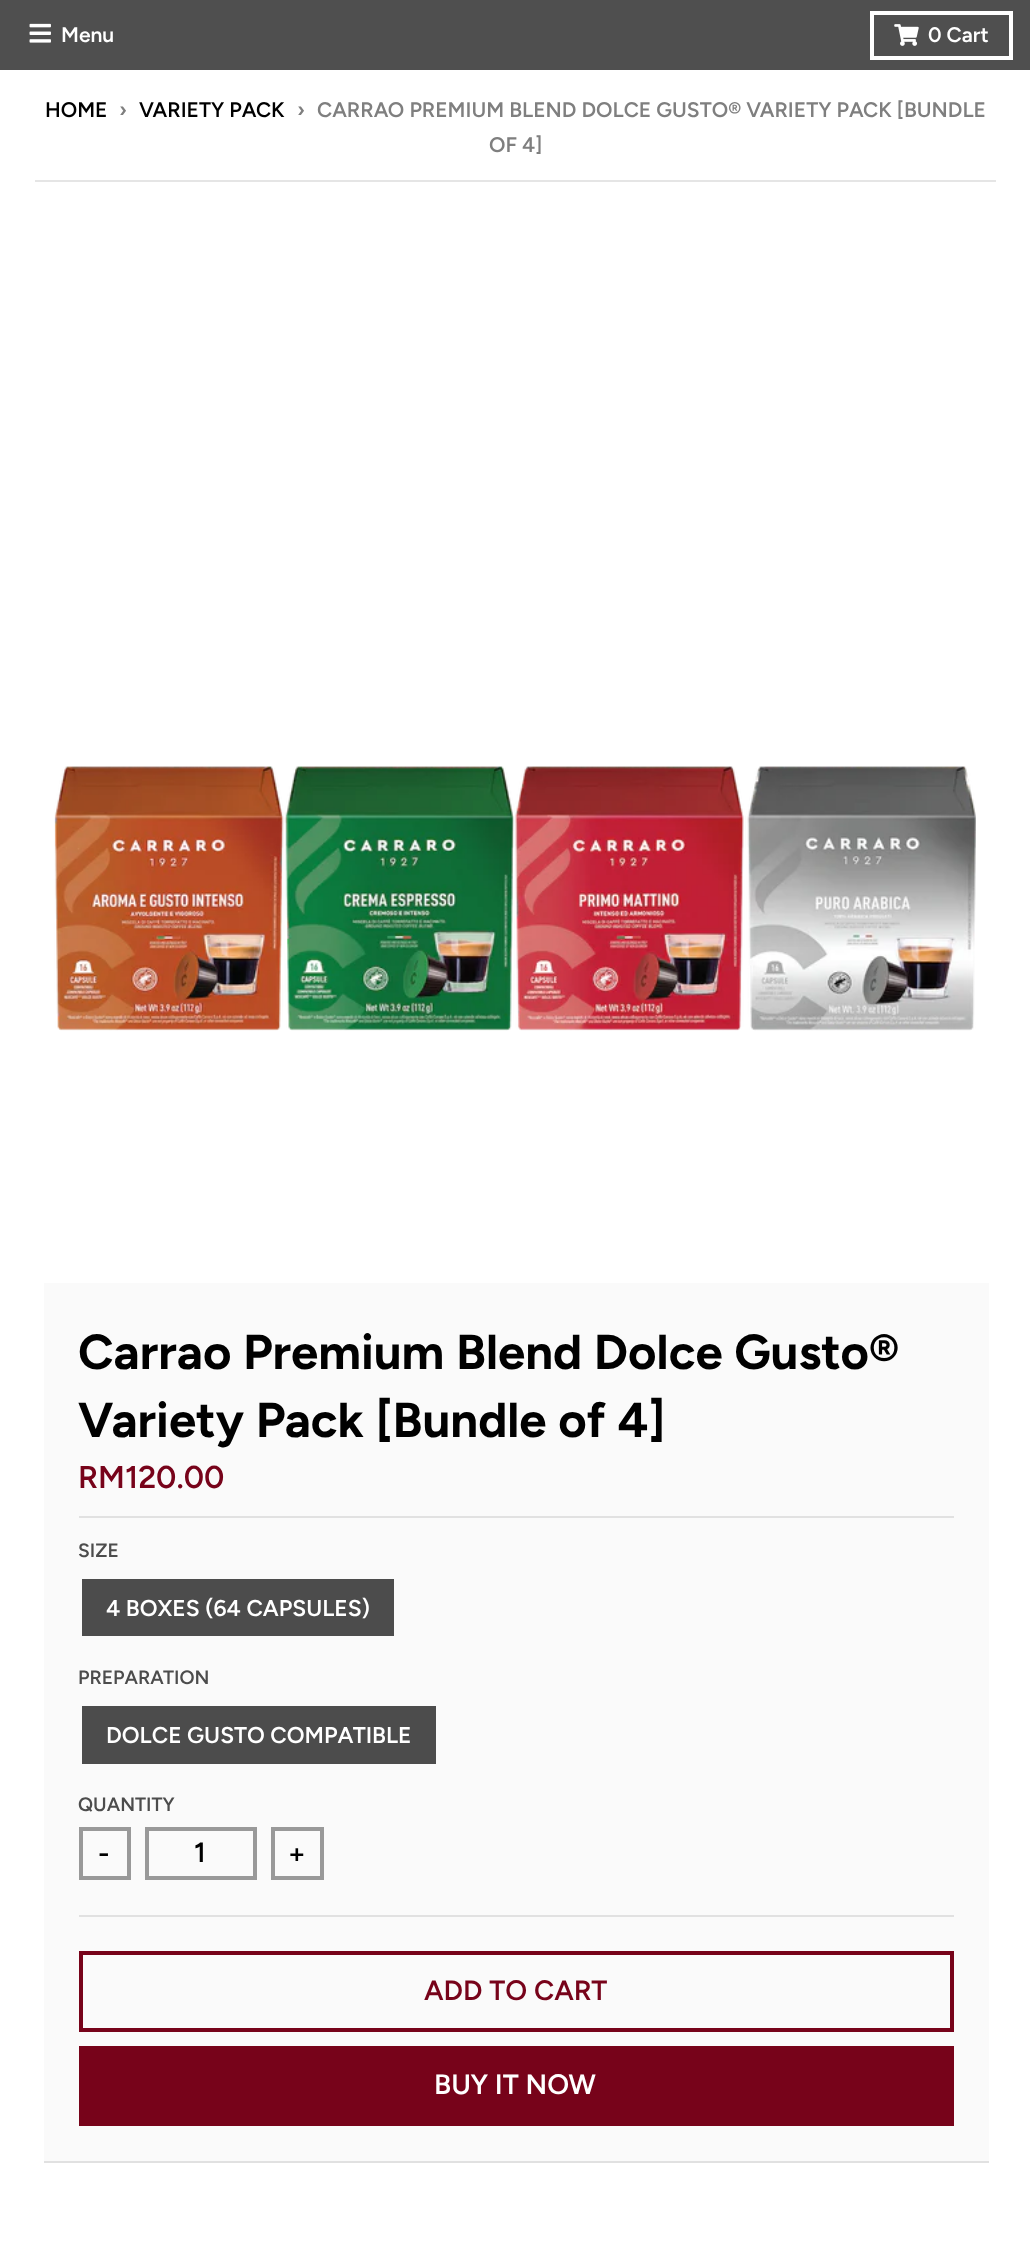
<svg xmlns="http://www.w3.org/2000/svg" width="1030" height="2254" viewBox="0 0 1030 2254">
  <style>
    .t1 { font: 600 21px Figtree; fill: #fff; }
    .t2 { font: 600 21px Figtree; fill: #000; }
    .t3 { font: 600 21px Figtree; fill: #7f7f7f; }
    .t4 { font: bold 49px Figtree; fill: #000; }
    .t5 { font: 600 31.5px Figtree; fill: #77031a; }
    .t6 { font: 600 19.25px Figtree; fill: #4c4c4c; }
    .t7 { font: 600 22.75px Figtree; fill: #fff; }
    .t8 { font: 600 28px Figtree; fill: #000; }
    .t9 { font: 600 28px Figtree; fill: #77031a; }
    .t10 { font: 600 28px Figtree; fill: #fff; }
  </style>
  <rect width="100%" height="100%" fill="#fff"/>
  <rect x="0" y="0" width="1030" height="70" fill="#4f4f4f"/>
  <image x="29" y="23" width="22" height="20" href="images/1.png"/>
  <text x="61" y="42" class="t1">Menu</text>
  <rect x="872" y="13" width="139" height="45" fill="none" stroke="#fff" stroke-width="4"/>
  <image x="894" y="24" width="25" height="22" href="images/2.png"/>
  <text x="928" y="42" class="t1">0 Cart</text>
  <text x="45" y="117" class="t2">HOME</text>
  <text x="119" y="117" class="t3">›</text>
  <text x="139" y="117" class="t2">VARIETY PACK</text>
  <text x="297" y="117" class="t3">›</text>
  <text x="317" y="117" class="t3">CARRAO PREMIUM BLEND DOLCE GUSTO® VARIETY PACK [BUNDLE</text>
  <text x="489" y="152" class="t3">OF 4]</text>
  <rect x="35" y="180" width="961" height="2" fill="#e5e5e5"/>
  <image x="54" y="766" width="922" height="265" href="images/3.png"/>
  <rect x="44" y="1283" width="945" height="878" fill="#fafafa"/>
  <rect x="44" y="2161" width="945" height="2" fill="#e1e1e1"/>
  <text x="78" y="1369" class="t4">Carrao Premium Blend Dolce Gusto®</text>
  <text x="78" y="1437" class="t4">Variety Pack [Bundle of 4]</text>
  <rect x="79" y="1516" width="875" height="2" fill="#e1e1e1"/>
  <text x="78" y="1488" class="t5">RM120.00</text>
  <rect x="79" y="1915" width="875" height="2" fill="#e1e1e1"/>
  <text x="78" y="1557" class="t6">SIZE</text>
  <rect x="82" y="1579" width="312" height="57" fill="#4c4c4c"/>
  <text x="106" y="1616" class="t7">4 BOXES (64 CAPSULES)</text>
  <text x="78" y="1684" class="t6">PREPARATION</text>
  <rect x="82" y="1706" width="354" height="58" fill="#4c4c4c"/>
  <text x="106" y="1743" class="t7">DOLCE GUSTO COMPATIBLE</text>
  <text x="78" y="1811" class="t6">QUANTITY</text>
  <rect x="81" y="1829" width="48" height="49" fill="none" stroke="#999" stroke-width="4"/>
  <text x="98" y="1863" class="t8">-</text>
  <rect x="147" y="1829" width="108" height="49" fill="none" stroke="#999" stroke-width="4"/>
  <text x="194" y="1862" class="t8">1</text>
  <rect x="273" y="1829" width="49" height="49" fill="none" stroke="#999" stroke-width="4"/>
  <text x="288" y="1863" class="t8">+</text>
  <rect x="81" y="1953" width="871" height="77" fill="none" stroke="#77031a" stroke-width="4"/>
  <text x="424" y="2000" class="t9">ADD TO CART</text>
  <rect x="79" y="2046" width="875" height="80" fill="#77031a"/>
  <text x="434" y="2094" class="t10">BUY IT NOW</text>
</svg>
